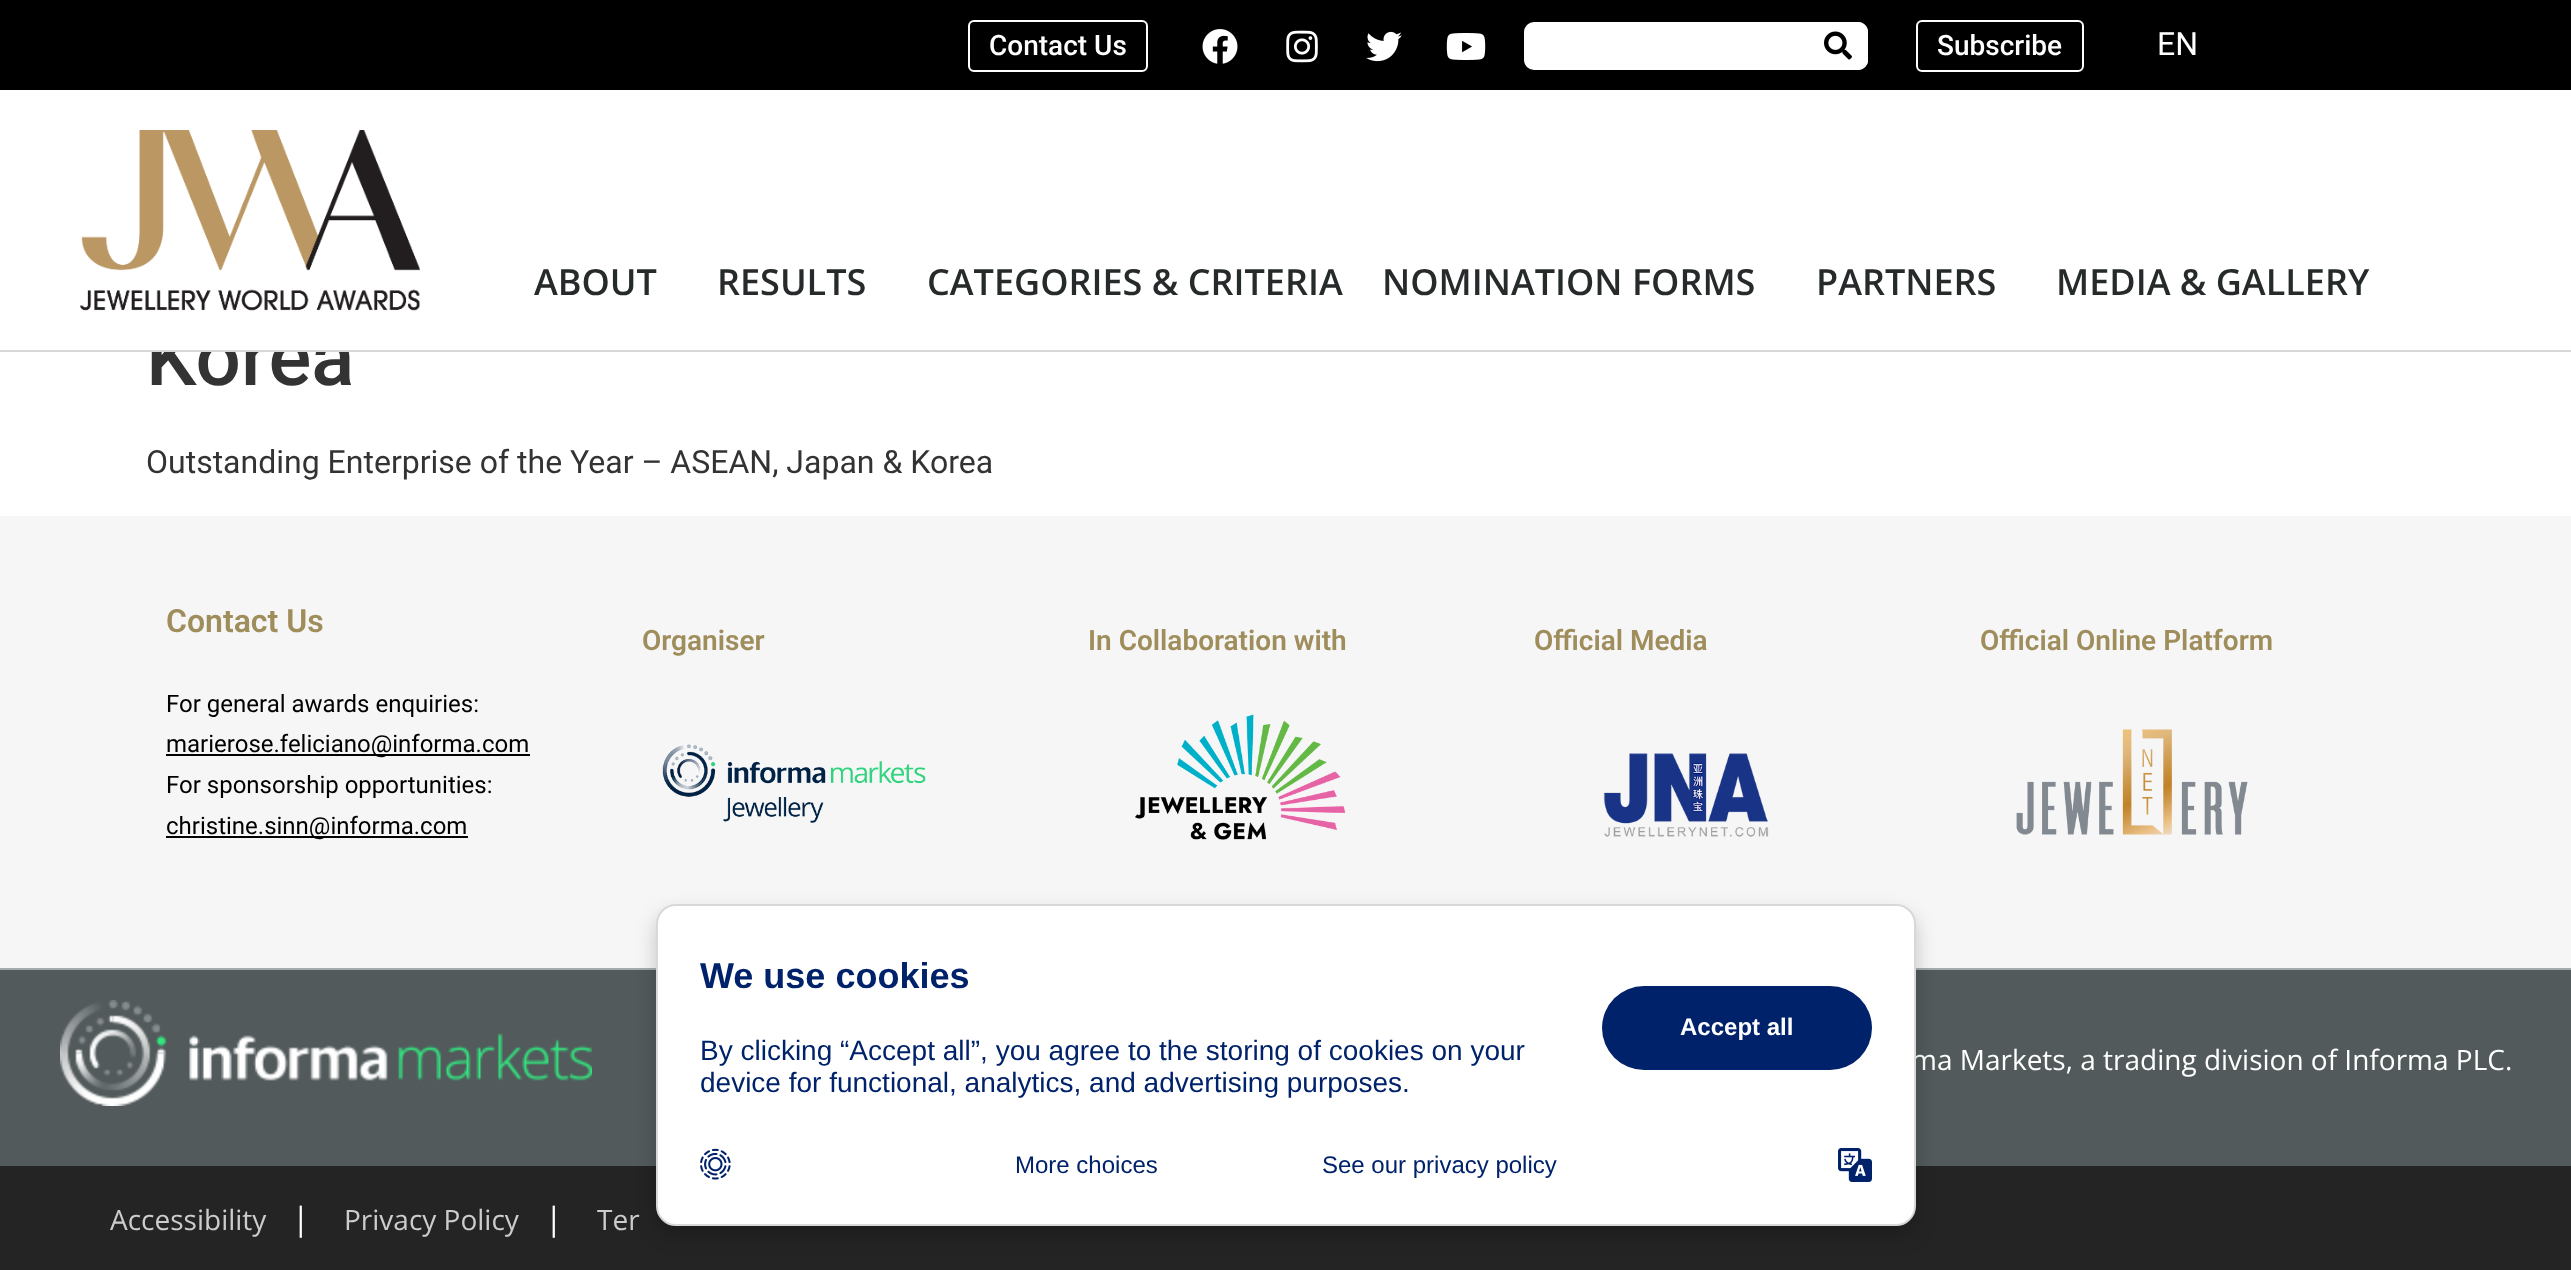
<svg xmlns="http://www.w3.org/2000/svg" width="2571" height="1270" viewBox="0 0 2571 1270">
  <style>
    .t1 { font: 500 28px Roboto; fill: #fff; }
    .t2 { font: 32px Roboto; fill: #fff; }
    .t3 { font: 500 80px Roboto; fill: #333; }
    .t4 { font: 600 36px Open Sans; fill: #262a2b; }
    .t5 { font: 32px Roboto; fill: #333; }
    .t6 { font: 600 32px Roboto; fill: #9f8d5c; }
    .t7 { font: 24px Roboto; fill: #000; }
    .t8 { font: 600 28px Roboto; fill: #9f8d5c; }
    .t9 { font: 28px Open Sans; fill: #fff; }
    .t10 { font: 28px Open Sans; fill: #ccc; }
    .t11 { font: 32px Open Sans; fill: #fff; }
    .t12 { font: bold 36px Liberation Sans; fill: #00226a; }
    .t13 { font: 28px Liberation Sans; fill: #00226a; }
    .t14 { font: bold 24px Liberation Sans; fill: #fff; }
    .t15 { font: 24px Liberation Sans; fill: #00226a; }
  </style>
  <rect width="100%" height="100%" fill="#fff"/>
  <rect x="0" y="0" width="2571" height="90" fill="#000"/>
  <rect x="969" y="21" width="178" height="50" rx="5" fill="none" stroke="#fff" stroke-width="2"/>
  <text x="989" y="55" class="t1">Contact Us</text>
  <image x="1202" y="29" width="36" height="35" href="images/1.png"/>
  <image x="1286" y="30" width="32" height="33" href="images/2.png"/>
  <image x="1366" y="31" width="36" height="31" href="images/3.png"/>
  <image x="1446" y="33" width="40" height="27" href="images/4.png"/>
  <rect x="1524" y="22" width="344" height="48" rx="10" fill="#fff"/>
  <path d="M1806 22H1858C1863.5 22 1868 26.5 1868 32V60C1868 65.5 1863.5 70 1858 70H1806Z" fill="#fff"/>
  <image x="1824" y="31" width="28" height="29" href="images/5.png"/>
  <rect x="1917" y="21" width="166" height="50" rx="5" fill="none" stroke="#fff" stroke-width="2"/>
  <text x="1937" y="55" class="t1">Subscribe</text>
  <text x="2157" y="55" class="t2">EN</text>
  <text x="146" y="385" class="t3">Korea</text>
  <rect x="151" y="328" width="198" height="22" fill="#fff"/>
  <rect x="0" y="350" width="2571" height="2" fill="#d8d8d8"/>
  <image x="80" y="130" width="340" height="181" href="images/6.png"/>
  <text x="534" y="295" class="t4">ABOUT</text>
  <text x="717" y="295" class="t4">RESULTS</text>
  <text x="927" y="295" class="t4">CATEGORIES &amp; CRITERIA</text>
  <text x="1382" y="295" class="t4">NOMINATION FORMS</text>
  <text x="1816" y="295" class="t4">PARTNERS</text>
  <text x="2056" y="295" class="t4">MEDIA &amp; GALLERY</text>
  <text x="146" y="473" class="t5">Outstanding Enterprise of the Year – ASEAN, Japan &amp; Korea</text>
  <rect x="0" y="516" width="2571" height="452" fill="#f6f6f6"/>
  <text x="166" y="632" class="t6">Contact Us</text>
  <text x="166" y="712" class="t7">For general awards enquiries:</text>
  <rect x="166" y="754" width="364" height="2" fill="#000"/>
  <text x="166" y="752" class="t7">marierose.feliciano@informa.com</text>
  <text x="166" y="793" class="t7">For sponsorship opportunities:</text>
  <rect x="166" y="836" width="302" height="2" fill="#000"/>
  <text x="166" y="834" class="t7">christine.sinn@informa.com</text>
  <text x="642" y="650" class="t8">Organiser</text>
  <image x="662" y="744" width="264" height="79" href="images/7.png"/>
  <text x="1088" y="650" class="t8">In Collaboration with</text>
  <image x="1135" y="714" width="211" height="126" href="images/8.png"/>
  <text x="1534" y="650" class="t8">Official Media</text>
  <image x="1603" y="753" width="166" height="84" href="images/9.png"/>
  <text x="1980" y="650" class="t8">Official Online Platform</text>
  <image x="2016" y="729" width="232" height="106" href="images/10.png"/>
  <rect x="0" y="970" width="2571" height="196" fill="#525a5c"/>
  <rect x="0" y="968" width="2571" height="2" fill="#a5acaf"/>
  <image x="60" y="1000" width="532" height="106" href="images/11.png"/>
  <text x="1911" y="1070" class="t9">ma Markets, a trading division of Informa PLC.</text>
  <rect x="0" y="1166" width="2571" height="104" fill="#252424"/>
  <text x="110" y="1230" class="t10">Accessibility</text>
  <text x="292" y="1230" class="t11">|</text>
  <text x="344" y="1230" class="t10">Privacy Policy</text>
  <text x="545" y="1230" class="t11">|</text>
  <text x="597" y="1230" class="t10">Ter</text>
  <rect x="656" y="914" width="1260" height="322" rx="20" fill="#00000033" filter="blur(10px)"/>
  <rect x="657" y="905" width="1258" height="320" rx="19" fill="#fff" stroke="#d8d8d8" stroke-width="2"/>
  <text x="700" y="988" class="t12">We use cookies</text>
  <text x="700" y="1060" class="t13">By clicking “Accept all”, you agree to the storing of cookies on your</text>
  <text x="700" y="1092" class="t13">device for functional, analytics, and advertising purposes.</text>
  <rect x="1602" y="986" width="270" height="84" rx="42" fill="#00226a"/>
  <text x="1680" y="1035" class="t14">Accept all</text>
  <image x="700" y="1148" width="31" height="32" href="images/12.png"/>
  <text x="1015" y="1173" class="t15">More choices</text>
  <text x="1322" y="1173" class="t15">See our privacy policy</text>
  <image x="1838" y="1148" width="34" height="34" href="images/13.png"/>
</svg>
